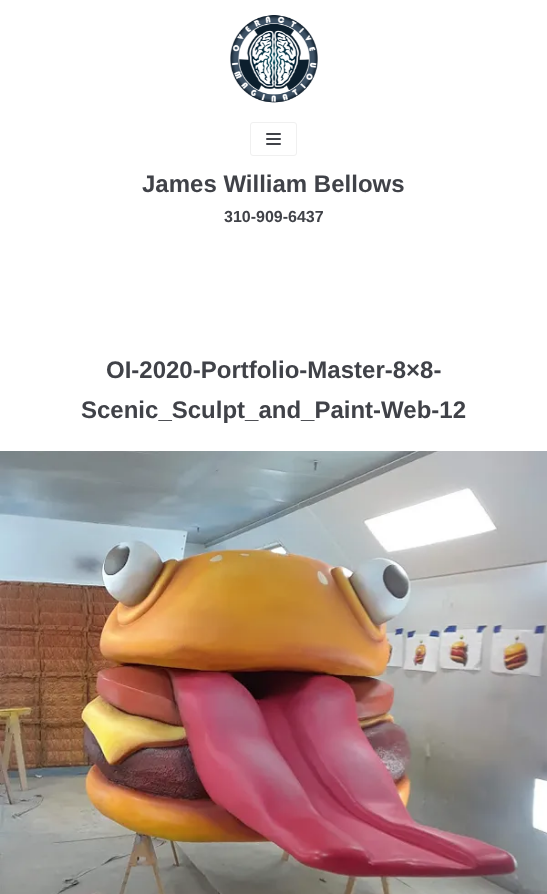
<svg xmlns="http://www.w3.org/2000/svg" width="547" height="894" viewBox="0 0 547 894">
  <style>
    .t1 { font: bold 24px Liberation Sans; fill: #404248; }
    .t2 { font: bold 16px Liberation Sans; fill: #404248; }
  </style>
  <rect width="100%" height="100%" fill="#fff"/>
  <image x="230" y="15" width="88" height="88" href="images/1.png"/>
  <rect x="250.5" y="122.5" width="46" height="33" rx="2.5" fill="none" stroke="#f0f0f0"/>
  <rect x="266" y="133" width="15" height="2" rx="1" fill="#404248"/>
  <rect x="266" y="138" width="15" height="2" rx="1" fill="#404248"/>
  <rect x="266" y="143" width="15" height="2" rx="1" fill="#404248"/>
  <text x="142" y="192" class="t1">James William Bellows</text>
  <text x="224" y="222" class="t2">310-909-6437</text>
  <text x="106" y="378" class="t1">OI-2020-Portfolio-Master-8×8-</text>
  <text x="81" y="418" class="t1">Scenic_Sculpt_and_Paint-Web-12</text>
  <image x="0" y="451" width="547" height="443" href="images/2.png"/>
</svg>
